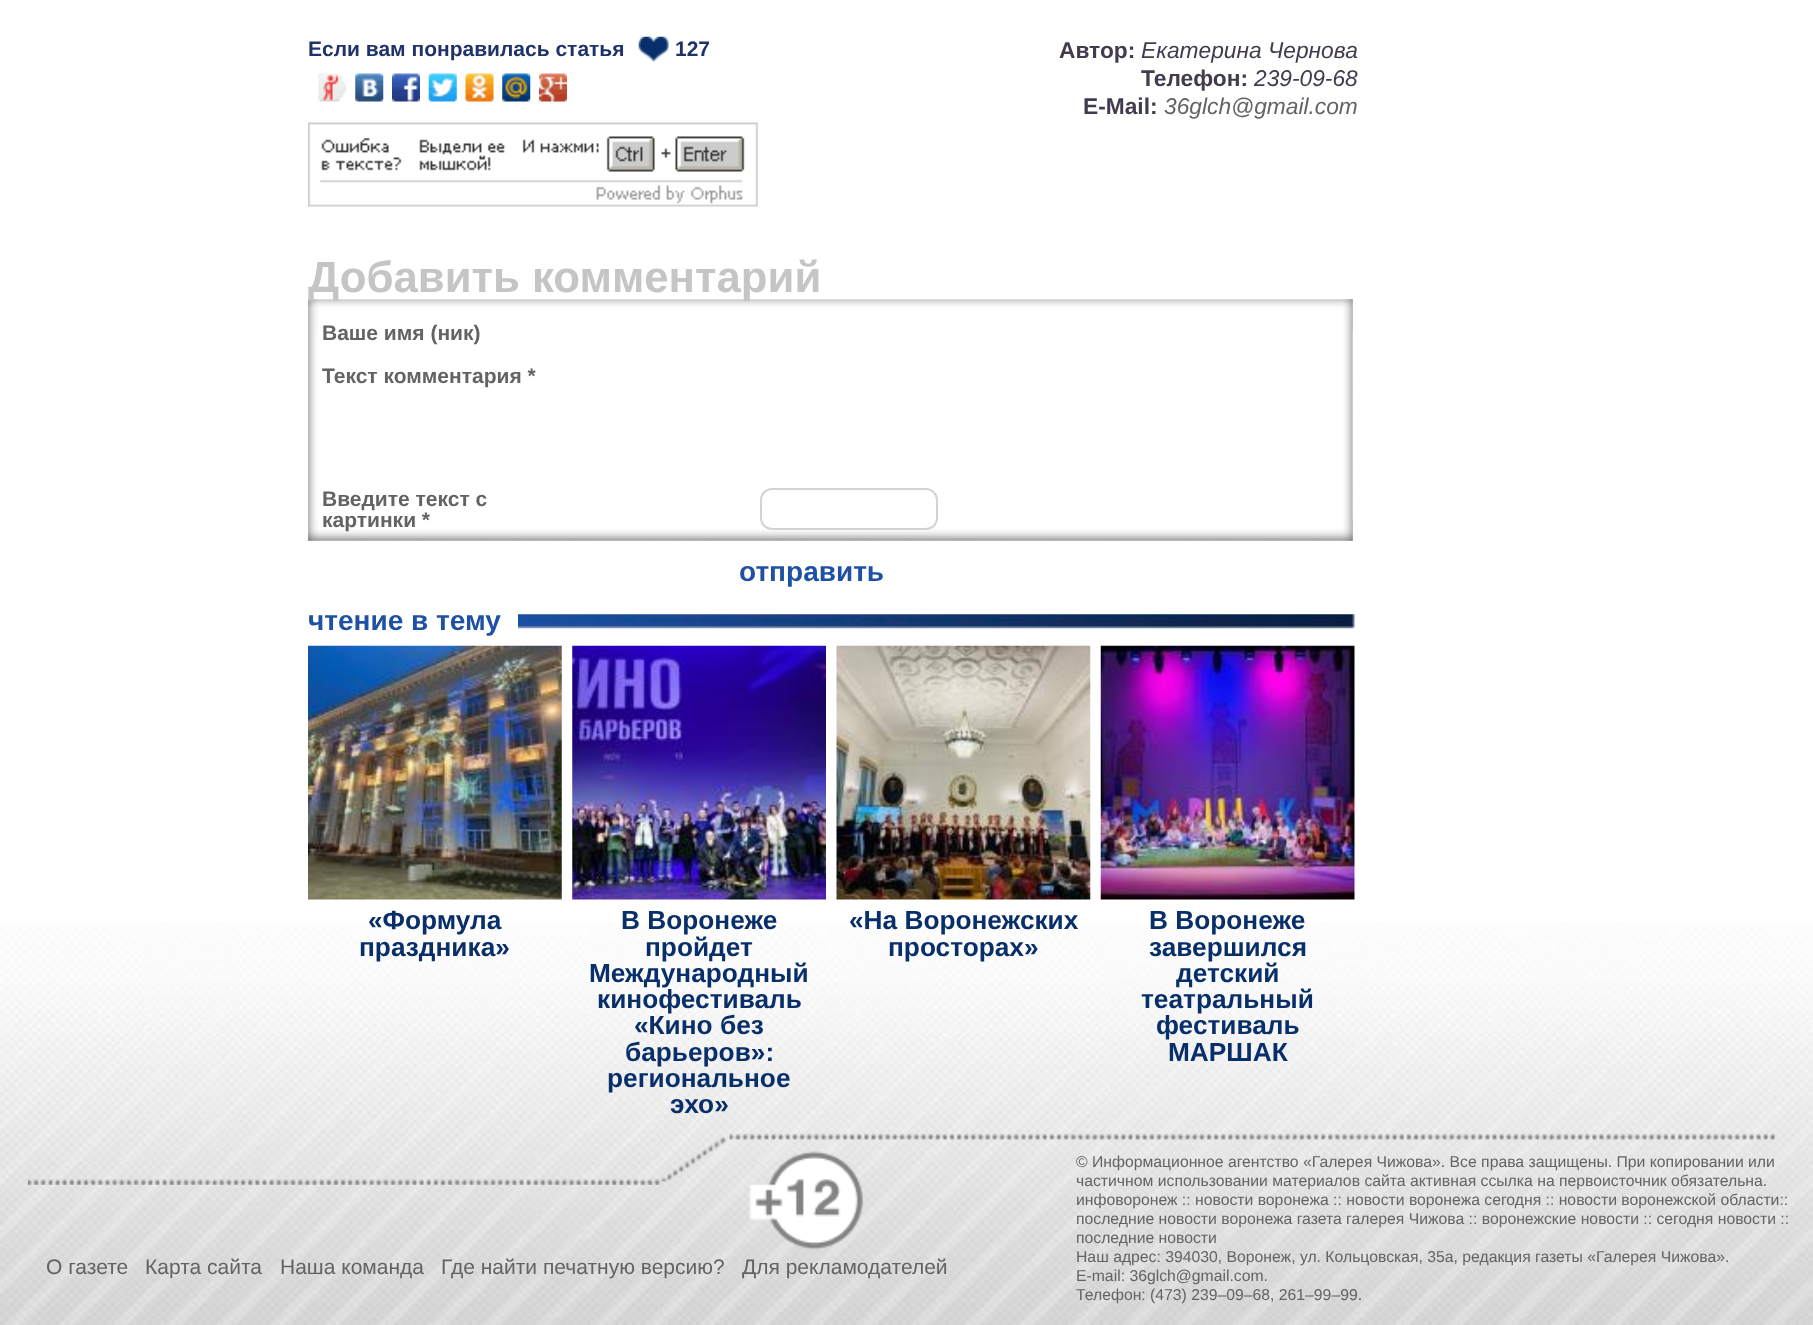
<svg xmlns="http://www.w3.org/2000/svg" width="1813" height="1325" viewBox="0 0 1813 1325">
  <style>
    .t1 { font: bold 21px Liberation Sans; fill: #203369; }
    .t2 { font: bold 22.75px Liberation Sans; fill: #413b4d; }
    .t3 { font: italic 22.75px Liberation Sans; fill: #413b4d; }
    .t4 { font: italic 22.75px Liberation Sans; fill: #656362; }
    .t5 { font: bold 43.75px Liberation Sans; fill: #c5c5c5; }
    .t6 { font: bold 21px Liberation Sans; fill: #656362; }
    .t7 { font: bold 28px Liberation Sans; fill: #1e51a4; }
    .t8 { font: bold 26.25px Liberation Sans; fill: #092f6b; }
    .t9 { font: 15.75px Liberation Sans; fill: #656362; }
    .t10 { font: 21px Liberation Sans; fill: #656362; }
  </style>
  <rect width="100%" height="100%" fill="#fff"/>
  <image x="0" y="923" width="1813" height="402" href="images/1.png"/>
  <text x="308" y="56" class="t1">Если вам понравилась статья</text>
  <image x="638" y="36" width="31" height="26" href="images/2.png"/>
  <text x="675" y="56" class="t1">127</text>
  <text x="1059" y="58" class="t2">Автор:</text>
  <text x="1141" y="58" class="t3">Екатерина Чернова</text>
  <text x="1141" y="86" class="t2">Телефон:</text>
  <text x="1254" y="86" class="t3">239-09-68</text>
  <text x="1083" y="114" class="t2">E-Mail:</text>
  <text x="1164" y="114" class="t4">36glch@gmail.com</text>
  <image x="318" y="73" width="29" height="29" href="images/3.png"/>
  <image x="355" y="73" width="29" height="29" href="images/4.png"/>
  <image x="392" y="73" width="28" height="29" href="images/5.png"/>
  <image x="428" y="73" width="29" height="29" href="images/6.png"/>
  <image x="465" y="73" width="29" height="29" href="images/7.png"/>
  <image x="502" y="73" width="29" height="29" href="images/8.png"/>
  <image x="539" y="73" width="28" height="29" href="images/9.png"/>
  <image x="308" y="122" width="450" height="85" href="images/10.png"/>
  <image x="308" y="299" width="1045" height="242" href="images/11.png"/>
  <text x="308" y="292" class="t5">Добавить комментарий</text>
  <text x="322" y="340" class="t6">Ваше имя (ник)</text>
  <text x="322" y="383" class="t6">Текст комментария *</text>
  <text x="322" y="506" class="t6">Введите текст с</text>
  <text x="322" y="527" class="t6">картинки *</text>
  <rect x="761" y="489" width="176" height="40" rx="11" fill="none" stroke="#d3d3d3" stroke-width="2"/>
  <text x="739" y="581" class="t7">отправить</text>
  <text x="308" y="630" class="t7">чтение в тему</text>
  <image x="518" y="614" width="837" height="15" href="images/12.png"/>
  <image x="308" y="645" width="254" height="255" href="images/13.png"/>
  <text x="368" y="929" class="t8">«Формула</text>
  <text x="359" y="956" class="t8">праздника»</text>
  <image x="572" y="645" width="254" height="255" href="images/14.png"/>
  <text x="621" y="929" class="t8">В Воронеже</text>
  <text x="645" y="956" class="t8">пройдет</text>
  <text x="589" y="982" class="t8">Международный</text>
  <text x="597" y="1008" class="t8">кинофестиваль</text>
  <text x="634" y="1034" class="t8">«Кино без</text>
  <text x="625" y="1061" class="t8">барьеров»:</text>
  <text x="607" y="1087" class="t8">региональное</text>
  <text x="670" y="1113" class="t8">эхо»</text>
  <image x="836" y="645" width="255" height="255" href="images/15.png"/>
  <text x="849" y="929" class="t8">«На Воронежских</text>
  <text x="888" y="956" class="t8">просторах»</text>
  <image x="1100" y="645" width="255" height="255" href="images/16.png"/>
  <text x="1149" y="929" class="t8">В Воронеже</text>
  <text x="1149" y="956" class="t8">завершился</text>
  <text x="1176" y="982" class="t8">детский</text>
  <text x="1141" y="1008" class="t8">театральный</text>
  <text x="1156" y="1034" class="t8">фестиваль</text>
  <text x="1168" y="1061" class="t8">МАРШАК</text>
  <image x="28" y="1134" width="1747" height="51" href="images/17.png"/>
  <image x="749" y="1151" width="114" height="99" href="images/18.png"/>
  <text x="1076" y="1167" class="t9">© Информационное агентство «Галерея Чижова». Все права защищены. При копировании или</text>
  <text x="1076" y="1186" class="t9">частичном использовании материалов сайта активная ссылка на первоисточник обязательна.</text>
  <text x="1076" y="1205" class="t9">инфоворонеж :: новости воронежа :: новости воронежа сегодня :: новости воронежской области::</text>
  <text x="1076" y="1224" class="t9">последние новости воронежа газета галерея Чижова :: воронежские новости :: сегодня новости ::</text>
  <text x="1076" y="1243" class="t9">последние новости</text>
  <text x="1076" y="1262" class="t9">Наш адрес: 394030, Воронеж, ул. Кольцовская, 35а, редакция газеты «Галерея Чижова».</text>
  <text x="1076" y="1281" class="t9">E-mail: 36glch@gmail.com.</text>
  <text x="1076" y="1300" class="t9">Телефон: (473) 239–09–68, 261–99–99.</text>
  <text x="46" y="1274" class="t10">О газете</text>
  <text x="145" y="1274" class="t10">Карта сайта</text>
  <text x="280" y="1274" class="t10">Наша команда</text>
  <text x="441" y="1274" class="t10">Где найти печатную версию?</text>
  <text x="742" y="1274" class="t10">Для рекламодателей</text>
</svg>
